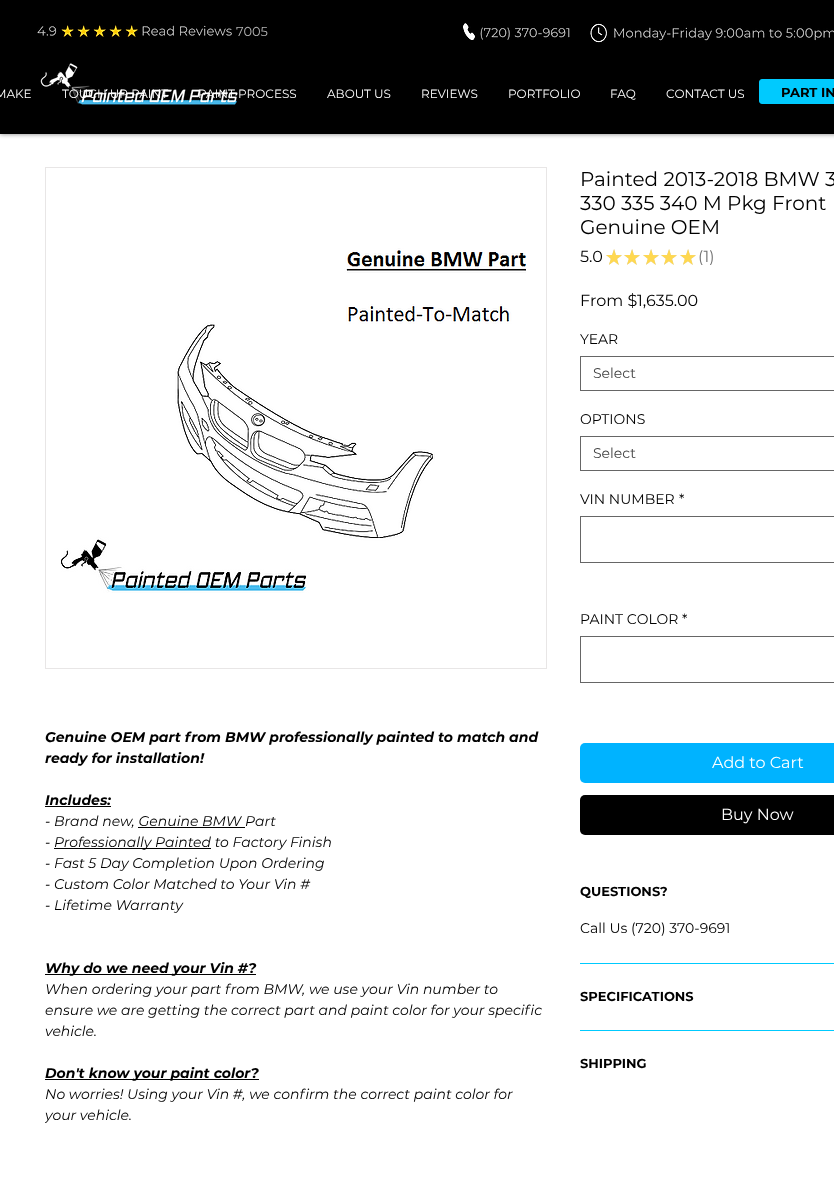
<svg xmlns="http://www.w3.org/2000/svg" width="834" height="1202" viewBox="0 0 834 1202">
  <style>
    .t1 { font: 13px Montserrat; fill: #b3b3b3; }
    .t2 { font: 12px Montserrat; fill: #fff; }
    .t3 { font: bold 13px Montserrat; fill: #000; }
    .t4 { font: italic bold 14px Montserrat; fill: #000; }
    .t5 { font: italic 14px Montserrat; fill: #000; }
    .t6 { font: 20px Montserrat; fill: #000; }
    .t7 { font: 16px Montserrat; fill: #000; }
    .t8 { font: 16px Montserrat; fill: #737373; }
    .t9 { font: 14px Montserrat; fill: #000; }
    .t10 { font: 14px Montserrat; fill: #444; }
    .t11 { font: 16px Montserrat; fill: #fff; }
  </style>
  <defs>
    <clipPath id="clip1"><rect x="45" y="727" width="500" height="399"/></clipPath>
  </defs>
  <rect width="100%" height="100%" fill="#fff"/>
  <rect x="0" y="0" width="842" height="134" fill="#00000080" filter="blur(2.5px)"/>
  <rect x="0" y="0" width="834" height="134" fill="#000"/>
  <image x="37" y="25" width="195" height="12" href="images/1.png"/>
  <text x="236" y="36" class="t1">7005</text>
  <image x="40" y="63" width="198" height="42" href="images/2.png"/>
  <image x="463" y="23" width="107" height="17" href="images/3.png"/>
  <image x="590" y="23" width="244" height="20" href="images/4.png"/>
  <text x="-5" y="98" class="t2">MAKE</text>
  <text x="62" y="98" class="t2">TOUCH UP PAINT</text>
  <text x="198" y="98" class="t2">PAINT PROCESS</text>
  <text x="327" y="98" class="t2">ABOUT US</text>
  <text x="421" y="98" class="t2">REVIEWS</text>
  <text x="508" y="98" class="t2">PORTFOLIO</text>
  <text x="610" y="98" class="t2">FAQ</text>
  <text x="666" y="98" class="t2">CONTACT US</text>
  <rect x="759.5" y="79.5" width="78" height="24" rx="2.5" fill="#00cafe" stroke="#00cafe"/>
  <text x="781" y="97" class="t3">PART IN</text>
  <rect x="45.5" y="167.5" width="501" height="501" fill="none" stroke="#e8e6e6"/>
  <image x="61" y="248" width="465" height="345" href="images/5.png"/>
  <text x="45" y="742" class="t4">Genuine OEM part from BMW professionally painted to match and</text>
  <text x="45" y="763" class="t4">ready for installation!</text>
  <text x="45" y="805" class="t4">Includes:</text>
  <rect x="45" y="806" width="66" height="1" fill="#000"/>
  <text x="45" y="826" class="t5">- Brand new, Genuine BMW Part</text>
  <rect x="138" y="827" width="107" height="1" fill="#000"/>
  <text x="45" y="847" class="t5">-</text>
  <rect x="54" y="848" width="157" height="1" fill="#000"/>
  <text x="54" y="847" class="t5">Professionally Painted to Factory Finish</text>
  <text x="45" y="868" class="t5">- Fast 5 Day Completion Upon Ordering</text>
  <text x="45" y="889" class="t5">- Custom Color Matched to Your Vin #</text>
  <text x="45" y="910" class="t5">- Lifetime Warranty</text>
  <rect x="45" y="974" width="211" height="1" fill="#000"/>
  <text x="45" y="973" class="t4">Why do we need your Vin #?</text>
  <text x="45" y="994" class="t5">When ordering your part from BMW, we use your Vin number to</text>
  <text x="45" y="1015" class="t5">ensure we are getting the correct part and paint color for your specific</text>
  <text x="45" y="1036" class="t5">vehicle.</text>
  <rect x="45" y="1079" width="214" height="1" fill="#000"/>
  <text x="45" y="1078" class="t4">Don't know your paint color?</text>
  <text x="45" y="1099" class="t5">No worries! Using your Vin #, we confirm the correct paint color for</text>
  <g clip-path="url(#clip1)">
    <text x="45" y="1120" class="t5">your vehicle.</text>
  </g>
  <text x="580" y="186" class="t6">Painted 2013-2018 BMW 3</text>
  <text x="580" y="210" class="t6">330 335 340 M Pkg Front</text>
  <text x="580" y="234" class="t6">Genuine OEM</text>
  <text x="580" y="262" class="t7">5.0</text>
  <image x="606" y="249" width="16" height="16" href="images/6.png"/>
  <image x="624" y="249" width="16" height="16" href="images/6.png"/>
  <image x="643" y="249" width="16" height="16" href="images/6.png"/>
  <image x="661" y="249" width="16" height="16" href="images/6.png"/>
  <image x="680" y="249" width="16" height="16" href="images/6.png"/>
  <image x="606" y="249" width="16" height="16" href="images/7.png"/>
  <image x="624" y="249" width="16" height="16" href="images/7.png"/>
  <image x="643" y="249" width="16" height="16" href="images/8.png"/>
  <image x="661" y="249" width="16" height="16" href="images/7.png"/>
  <image x="680" y="249" width="16" height="16" href="images/9.png"/>
  <text x="698" y="262" class="t8">(1)</text>
  <text x="580" y="306" class="t7">From $1,635.00</text>
  <text x="580" y="344" class="t9">YEAR</text>
  <rect x="580.5" y="356.5" width="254" height="34" fill="none" stroke="#666"/>
  <text x="593" y="378" class="t10">Select</text>
  <text x="580" y="424" class="t9">OPTIONS</text>
  <rect x="580.5" y="436.5" width="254" height="34" fill="none" stroke="#666"/>
  <text x="593" y="458" class="t10">Select</text>
  <text x="580" y="504" class="t9">VIN NUMBER</text>
  <text x="679" y="504" class="t9">*</text>
  <rect x="580.5" y="516.5" width="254" height="46" fill="none" stroke="#666"/>
  <text x="580" y="624" class="t9">PAINT COLOR</text>
  <text x="682" y="624" class="t9">*</text>
  <rect x="580.5" y="636.5" width="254" height="46" fill="none" stroke="#666"/>
  <rect x="580" y="743" width="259" height="40" rx="5" fill="#00b3ff"/>
  <text x="712" y="768" class="t11">Add to Cart</text>
  <rect x="580" y="795" width="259" height="40" rx="5" fill="#000"/>
  <text x="721" y="820" class="t11">Buy Now</text>
  <rect x="580" y="963" width="254" height="1" fill="#00cafe"/>
  <text x="580" y="896" class="t3">QUESTIONS?</text>
  <text x="580" y="933" class="t9">Call Us (720) 370-9691</text>
  <rect x="580" y="1030" width="254" height="1" fill="#00cafe"/>
  <text x="580" y="1001" class="t3">SPECIFICATIONS</text>
  <text x="580" y="1068" class="t3">SHIPPING</text>
</svg>
